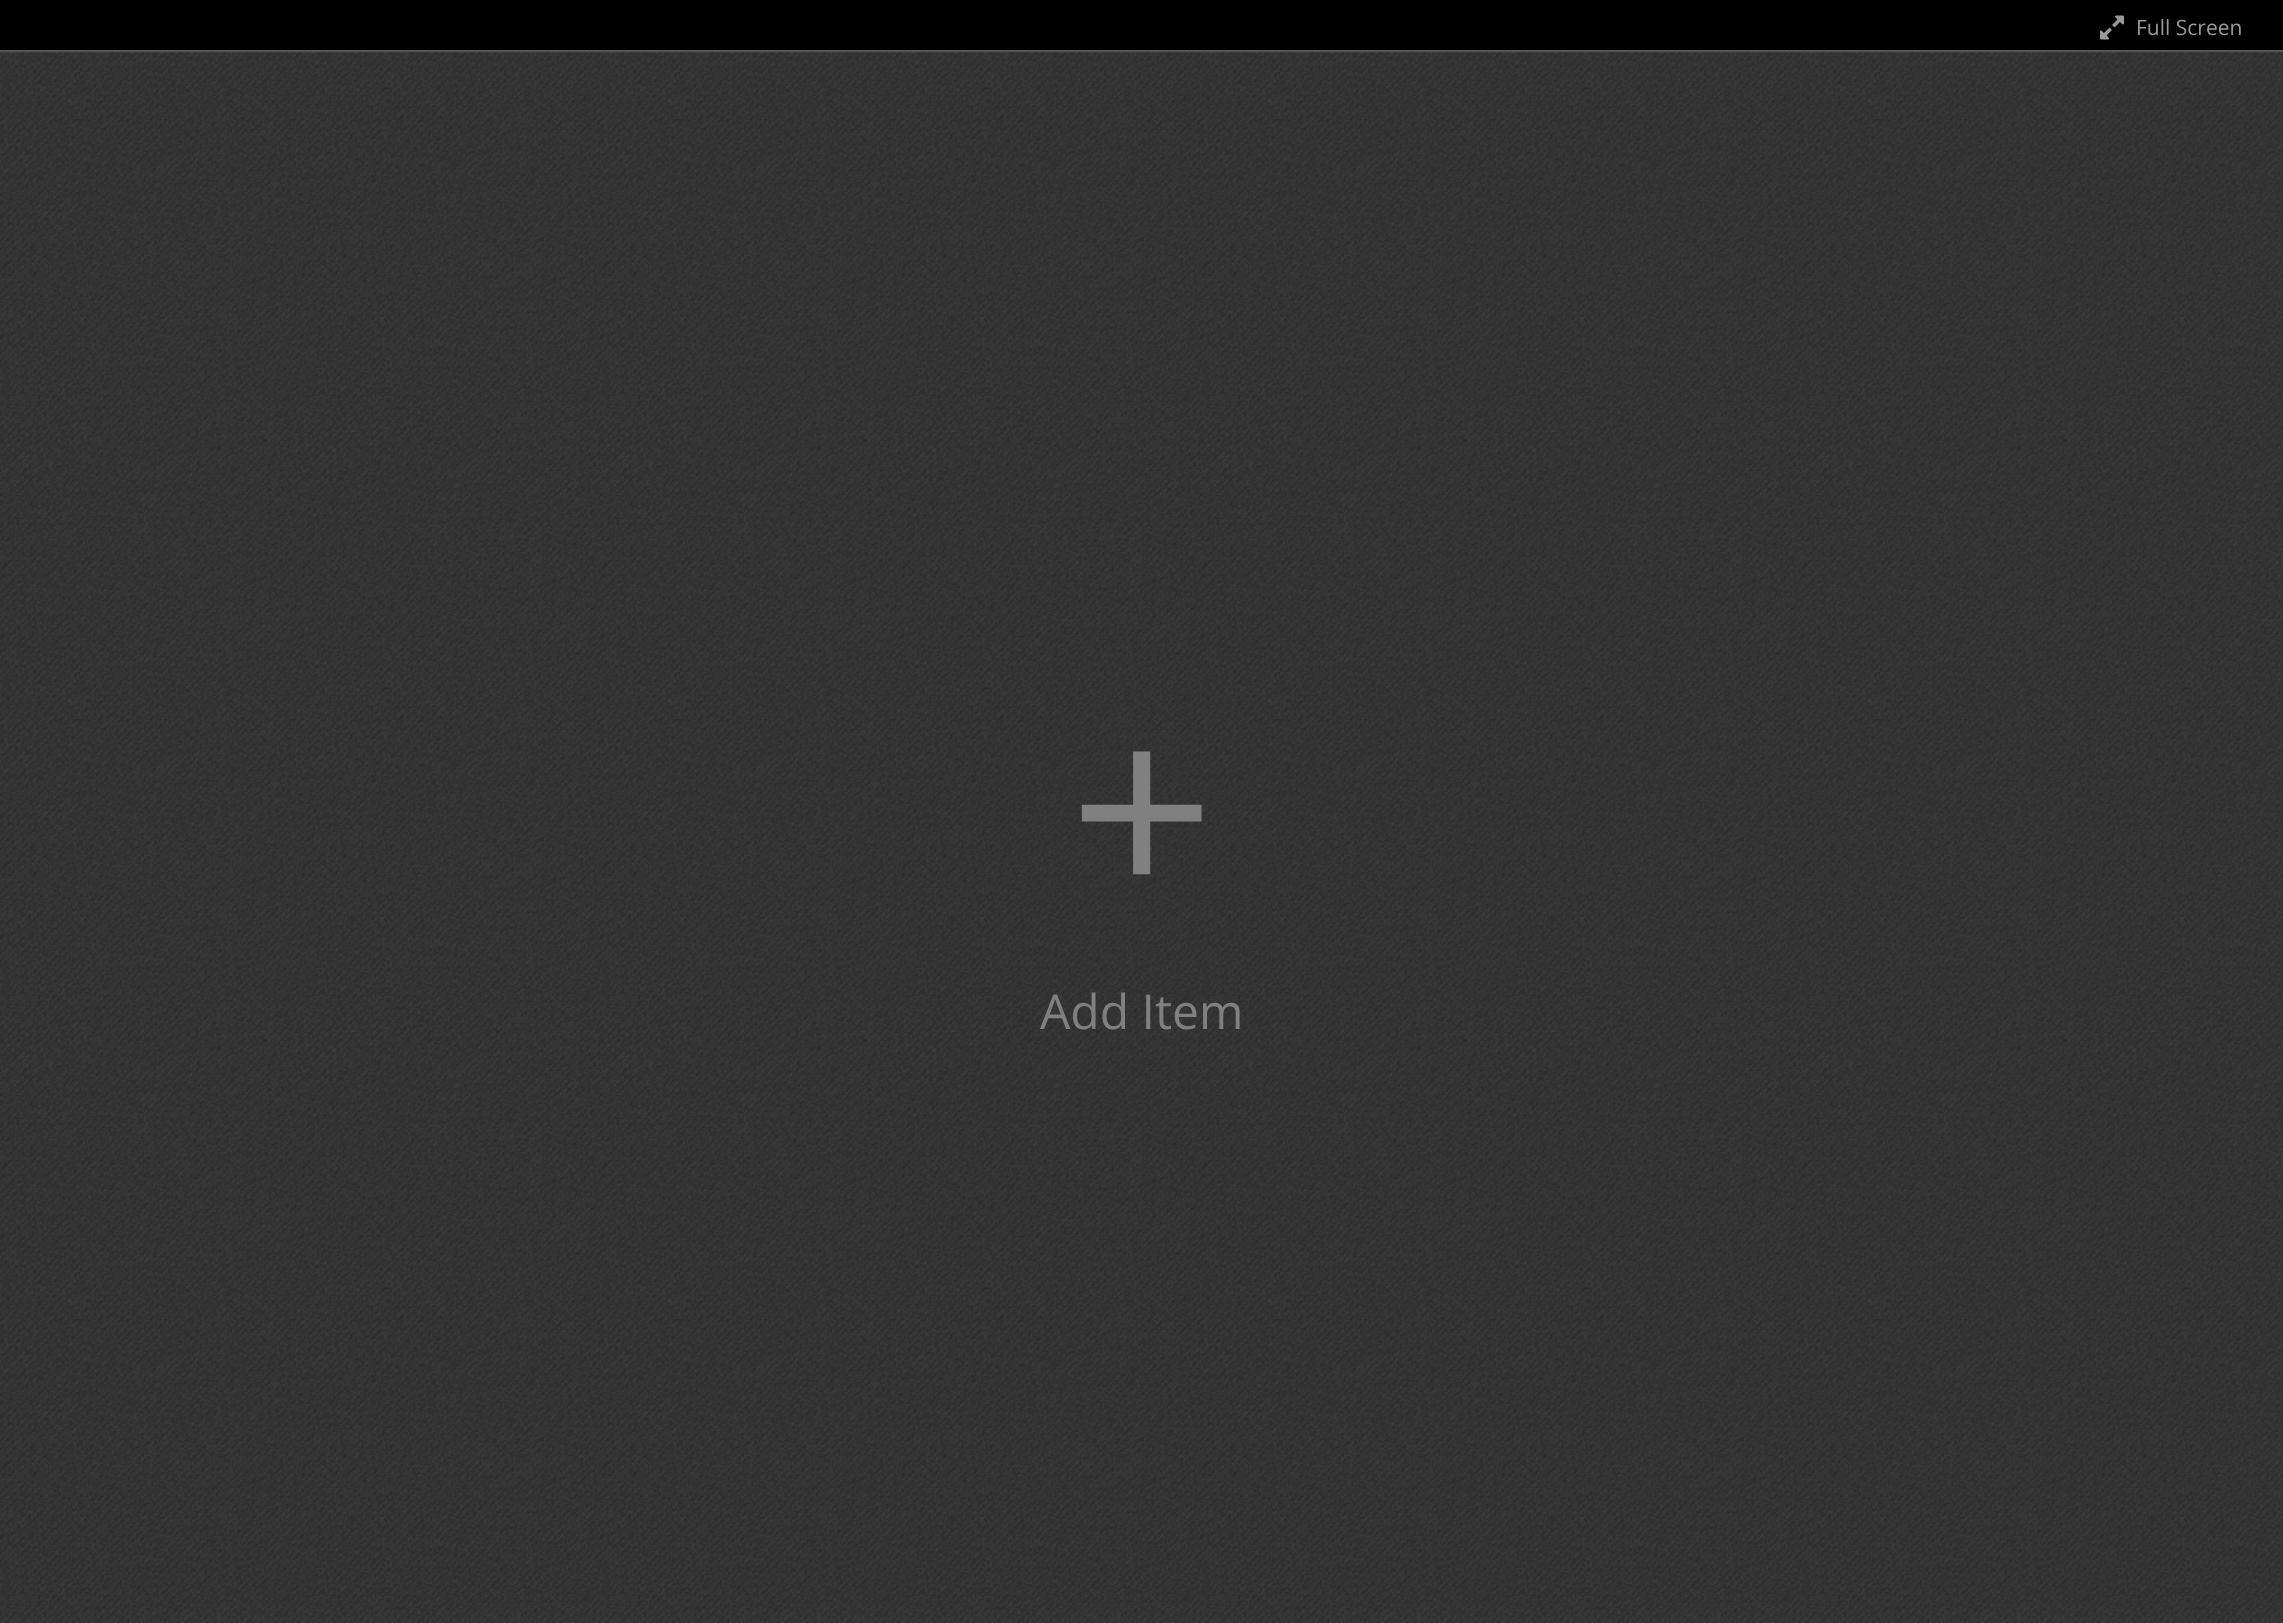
<svg xmlns="http://www.w3.org/2000/svg" width="2283" height="1623" viewBox="0 0 2283 1623">
  <style>
    .t1 { font: 21px Open Sans; fill: #999; }
    .t2 { font: 255px Open Sans; fill: #808080; }
    .t3 { font: 48px Open Sans; fill: #808080; }
  </style>
  <rect width="100%" height="100%" fill="#fff"/>
  <image x="0" y="52" width="2283" height="1571" href="images/1.png"/>
  <rect x="0" y="0" width="2283" height="50" fill="#000"/>
  <rect x="0" y="50" width="2283" height="2" fill="#555"/>
  <image x="2100" y="15" width="24" height="25" href="images/2.png"/>
  <text x="2136" y="35" class="t1">Full Screen</text>
  <text x="1069" y="903" class="t2">+</text>
  <text x="1040" y="1029" class="t3">Add Item</text>
</svg>
